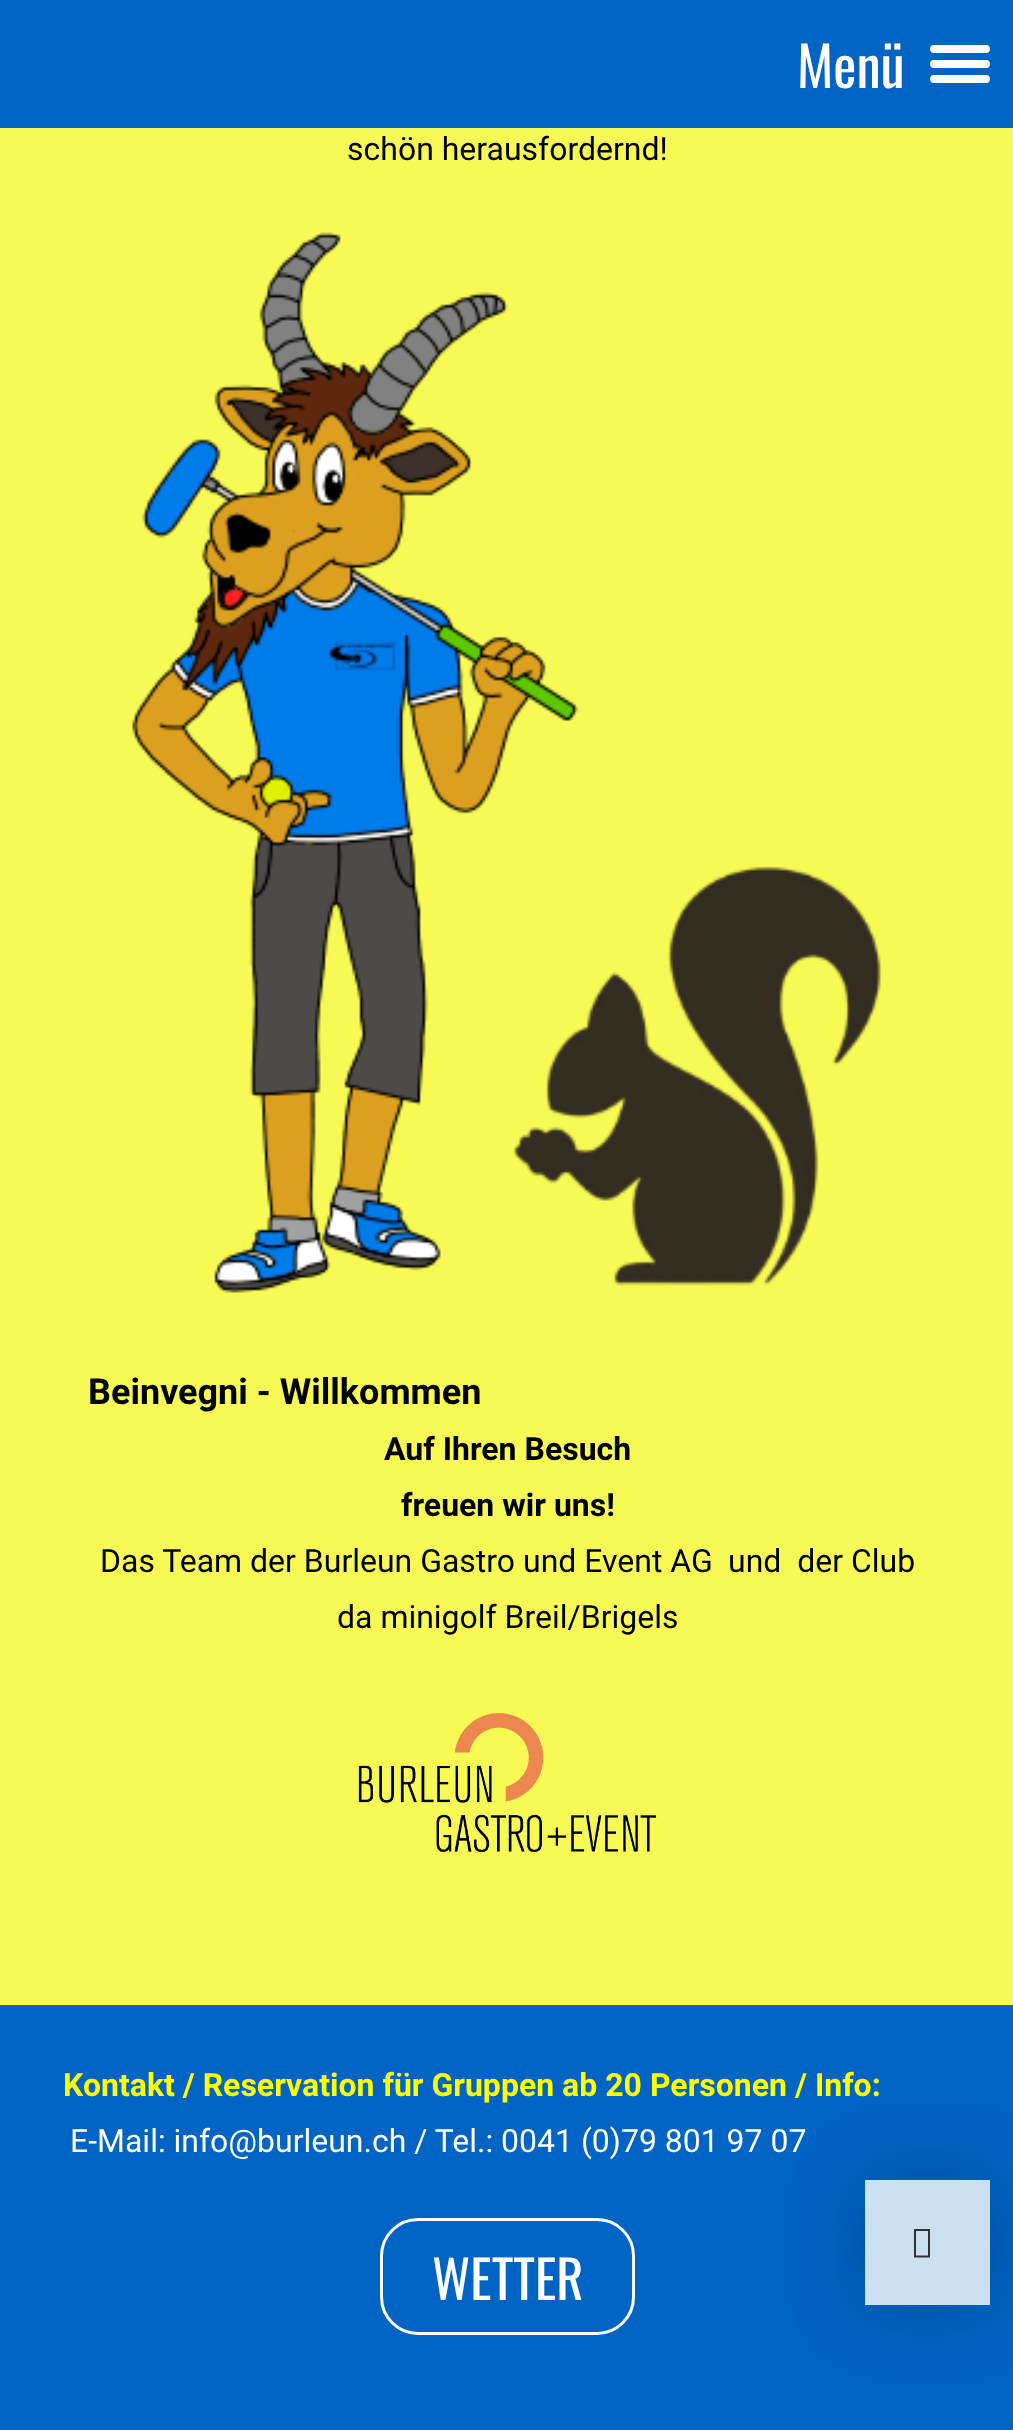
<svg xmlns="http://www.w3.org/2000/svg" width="1013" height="2430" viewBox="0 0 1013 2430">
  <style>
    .t1 { font: 55px Oswald; fill: #fff; }
    .t2 { font: 32px Roboto; fill: #000; }
    .t3 { font: bold 36px Roboto; fill: #000; }
    .t4 { font: bold 32px Roboto; fill: #000; }
    .t5 { font: bold 32px Roboto; fill: #ff0; }
    .t6 { font: 32px Roboto; fill: #fff; }
    .t7 { font: 52.5px Oswald; fill: #fff; }
  </style>
  <rect width="100%" height="100%" fill="#f7fa54"/>
  <rect x="0" y="0" width="1013" height="128" fill="#0064c5"/>
  <text x="797" y="88" class="t1">Menü</text>
  <rect x="930" y="45" width="60" height="8" rx="4" fill="#fff"/>
  <rect x="930" y="60" width="60" height="8" rx="4" fill="#fff"/>
  <rect x="930" y="75" width="60" height="8" rx="4" fill="#fff"/>
  <text x="347" y="160" class="t2">schön herausfordernd!</text>
  <image x="132" y="232" width="750" height="1061" href="images/1.png"/>
  <text x="88" y="1404" class="t3">Beinvegni - Willkommen</text>
  <text x="384" y="1460" class="t4">Auf Ihren Besuch</text>
  <text x="401" y="1516" class="t4">freuen wir uns!</text>
  <text x="100" y="1572" class="t2">Das Team der Burleun Gastro und Event AG</text>
  <text x="728" y="1572" class="t2" xml:space="preserve">und  der Club</text>
  <text x="337" y="1628" class="t2">da minigolf Breil/Brigels</text>
  <image x="358" y="1713" width="299" height="139" href="images/2.png"/>
  <rect x="0" y="2005" width="1013" height="425" fill="#0064c5"/>
  <text x="63" y="2096" class="t5">Kontakt / Reservation für Gruppen ab 20 Personen / Info:</text>
  <text x="70" y="2152" class="t6">E-Mail: info@burleun.ch / Tel.: 0041 (0)79 801 97 07</text>
  <rect x="381.5" y="2219.5" width="252" height="114" rx="36.5" fill="none" stroke="#fff" stroke-width="3"/>
  <text x="432" y="2300" class="t7">WETTER</text>
  <rect x="865" y="2180" width="125" height="125" fill="#00000040" filter="blur(37.5px)"/>
  <rect x="865" y="2180" width="125" height="125" fill="#cce0f3"/>
  <path d="M914 2257.5V2229H930V2257.5ZM916 2255.5H928V2231H916Z" fill="#333"/>
</svg>
